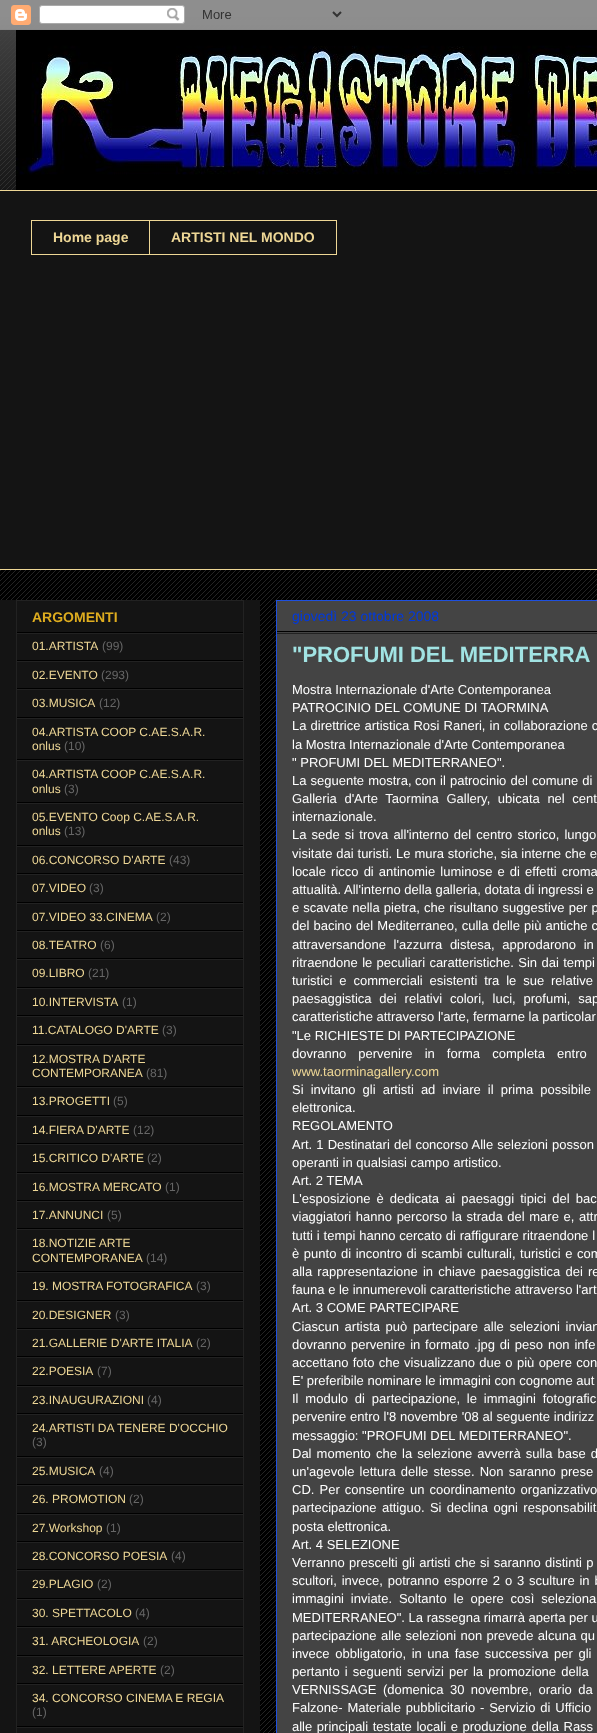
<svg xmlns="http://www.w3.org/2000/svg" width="597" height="1733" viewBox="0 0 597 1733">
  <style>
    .t1 { font: bold 14px Liberation Sans; fill: #eed796; }
    .t2 { font: bold 14px Liberation Sans; fill: #dfad1f; }
    .t3 { font: 12px Liberation Sans; fill: #eed796; }
    .t4 { font: 12px Liberation Sans; fill: #666; }
    .t5 { font: 14px Liberation Sans; fill: #0039df; }
    .t6 { font: bold 22px Liberation Sans; fill: #a1e3e3; }
    .t7 { font: 13px Liberation Sans; fill: #fff; }
    .t8 { font: 13px Liberation Sans; fill: #eed796; }
  </style>
  <rect width="100%" height="100%" fill="#000"/>
  <image x="0" y="13" width="597" height="1720" href="images/1.png"/>
  <image x="0" y="0" width="597" height="190" href="images/2.png"/>
  <image x="0" y="0" width="597" height="30" href="images/3.png"/>
  <image x="16" y="30" width="581" height="160" href="images/4.png"/>
  <rect x="0" y="191" width="597" height="378" fill="#141414"/>
  <rect x="0" y="190" width="597" height="1" fill="#eed796"/>
  <rect x="31" y="220" width="118" height="1" fill="#eed796"/>
  <rect x="31" y="254" width="118" height="1" fill="#eed796"/>
  <rect x="31" y="220" width="1" height="35" fill="#eed796"/>
  <text x="53" y="242" class="t1">Home page</text>
  <rect x="149.5" y="220.5" width="187" height="34" fill="none" stroke="#eed796"/>
  <text x="171" y="242" class="t1">ARTISTI NEL MONDO</text>
  <rect x="0" y="569" width="597" height="1" fill="#eed796"/>
  <rect x="0" y="600" width="260" height="1133" fill="#141414"/>
  <rect x="16.5" y="600.5" width="227" height="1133" fill="none" stroke="#222"/>
  <rect x="17" y="632" width="226" height="1" fill="#000"/>
  <text x="32" y="622" class="t2">ARGOMENTI</text>
  <rect x="17" y="633" width="226" height="1" fill="#222"/>
  <rect x="17" y="660" width="226" height="1" fill="#000"/>
  <text x="32" y="650" class="t3">01.ARTISTA</text>
  <text x="102" y="650" class="t4">(99)</text>
  <rect x="17" y="661" width="226" height="1" fill="#222"/>
  <rect x="17" y="688" width="226" height="1" fill="#000"/>
  <text x="32" y="679" class="t3">02.EVENTO</text>
  <text x="101" y="679" class="t4">(293)</text>
  <rect x="17" y="689" width="226" height="1" fill="#222"/>
  <rect x="17" y="717" width="226" height="1" fill="#000"/>
  <text x="32" y="707" class="t3">03.MUSICA</text>
  <text x="99" y="707" class="t4">(12)</text>
  <rect x="17" y="718" width="226" height="1" fill="#222"/>
  <rect x="17" y="759" width="226" height="1" fill="#000"/>
  <text x="32" y="736" class="t3">04.ARTISTA COOP C.AE.S.A.R.</text>
  <text x="32" y="750" class="t3">onlus</text>
  <text x="64" y="750" class="t4">(10)</text>
  <rect x="17" y="760" width="226" height="1" fill="#222"/>
  <rect x="17" y="802" width="226" height="1" fill="#000"/>
  <text x="32" y="778" class="t3">04.ARTISTA COOP C.AE.S.A.R.</text>
  <text x="32" y="793" class="t3">onlus</text>
  <text x="64" y="793" class="t4">(3)</text>
  <rect x="17" y="803" width="226" height="1" fill="#222"/>
  <rect x="17" y="845" width="226" height="1" fill="#000"/>
  <text x="32" y="821" class="t3">05.EVENTO Coop C.AE.S.A.R.</text>
  <text x="32" y="835" class="t3">onlus</text>
  <text x="64" y="835" class="t4">(13)</text>
  <rect x="17" y="846" width="226" height="1" fill="#222"/>
  <rect x="17" y="873" width="226" height="1" fill="#000"/>
  <text x="32" y="864" class="t3">06.CONCORSO D'ARTE</text>
  <text x="169" y="864" class="t4">(43)</text>
  <rect x="17" y="874" width="226" height="1" fill="#222"/>
  <rect x="17" y="902" width="226" height="1" fill="#000"/>
  <text x="32" y="892" class="t3">07.VIDEO</text>
  <text x="89" y="892" class="t4">(3)</text>
  <rect x="17" y="903" width="226" height="1" fill="#222"/>
  <rect x="17" y="930" width="226" height="1" fill="#000"/>
  <text x="32" y="921" class="t3">07.VIDEO 33.CINEMA</text>
  <text x="156" y="921" class="t4">(2)</text>
  <rect x="17" y="931" width="226" height="1" fill="#222"/>
  <rect x="17" y="958" width="226" height="1" fill="#000"/>
  <text x="32" y="949" class="t3">08.TEATRO</text>
  <text x="100" y="949" class="t4">(6)</text>
  <rect x="17" y="959" width="226" height="1" fill="#222"/>
  <rect x="17" y="987" width="226" height="1" fill="#000"/>
  <text x="32" y="977" class="t3">09.LIBRO</text>
  <text x="88" y="977" class="t4">(21)</text>
  <rect x="17" y="988" width="226" height="1" fill="#222"/>
  <rect x="17" y="1015" width="226" height="1" fill="#000"/>
  <text x="32" y="1006" class="t3">10.INTERVISTA</text>
  <text x="122" y="1006" class="t4">(1)</text>
  <rect x="17" y="1016" width="226" height="1" fill="#222"/>
  <rect x="17" y="1044" width="226" height="1" fill="#000"/>
  <text x="32" y="1034" class="t3">11.CATALOGO D'ARTE</text>
  <text x="162" y="1034" class="t4">(3)</text>
  <rect x="17" y="1045" width="226" height="1" fill="#222"/>
  <rect x="17" y="1086" width="226" height="1" fill="#000"/>
  <text x="32" y="1063" class="t3">12.MOSTRA D'ARTE</text>
  <text x="32" y="1077" class="t3">CONTEMPORANEA</text>
  <text x="146" y="1077" class="t4">(81)</text>
  <rect x="17" y="1087" width="226" height="1" fill="#222"/>
  <rect x="17" y="1115" width="226" height="1" fill="#000"/>
  <text x="32" y="1105" class="t3">13.PROGETTI</text>
  <text x="113" y="1105" class="t4">(5)</text>
  <rect x="17" y="1116" width="226" height="1" fill="#222"/>
  <rect x="17" y="1143" width="226" height="1" fill="#000"/>
  <text x="32" y="1134" class="t3">14.FIERA D'ARTE</text>
  <text x="133" y="1134" class="t4">(12)</text>
  <rect x="17" y="1144" width="226" height="1" fill="#222"/>
  <rect x="17" y="1172" width="226" height="1" fill="#000"/>
  <text x="32" y="1162" class="t3">15.CRITICO D'ARTE</text>
  <text x="147" y="1162" class="t4">(2)</text>
  <rect x="17" y="1173" width="226" height="1" fill="#222"/>
  <rect x="17" y="1200" width="226" height="1" fill="#000"/>
  <text x="32" y="1191" class="t3">16.MOSTRA MERCATO</text>
  <text x="165" y="1191" class="t4">(1)</text>
  <rect x="17" y="1201" width="226" height="1" fill="#222"/>
  <rect x="17" y="1228" width="226" height="1" fill="#000"/>
  <text x="32" y="1219" class="t3">17.ANNUNCI</text>
  <text x="107" y="1219" class="t4">(5)</text>
  <rect x="17" y="1229" width="226" height="1" fill="#222"/>
  <rect x="17" y="1271" width="226" height="1" fill="#000"/>
  <text x="32" y="1247" class="t3">18.NOTIZIE ARTE</text>
  <text x="32" y="1262" class="t3">CONTEMPORANEA</text>
  <text x="146" y="1262" class="t4">(14)</text>
  <rect x="17" y="1272" width="226" height="1" fill="#222"/>
  <rect x="17" y="1300" width="226" height="1" fill="#000"/>
  <text x="32" y="1290" class="t3">19. MOSTRA FOTOGRAFICA</text>
  <text x="196" y="1290" class="t4">(3)</text>
  <rect x="17" y="1301" width="226" height="1" fill="#222"/>
  <rect x="17" y="1328" width="226" height="1" fill="#000"/>
  <text x="32" y="1319" class="t3">20.DESIGNER</text>
  <text x="115" y="1319" class="t4">(3)</text>
  <rect x="17" y="1329" width="226" height="1" fill="#222"/>
  <rect x="17" y="1356" width="226" height="1" fill="#000"/>
  <text x="32" y="1347" class="t3">21.GALLERIE D'ARTE ITALIA</text>
  <text x="196" y="1347" class="t4">(2)</text>
  <rect x="17" y="1357" width="226" height="1" fill="#222"/>
  <rect x="17" y="1385" width="226" height="1" fill="#000"/>
  <text x="32" y="1375" class="t3">22.POESIA</text>
  <text x="97" y="1375" class="t4">(7)</text>
  <rect x="17" y="1386" width="226" height="1" fill="#222"/>
  <rect x="17" y="1413" width="226" height="1" fill="#000"/>
  <text x="32" y="1404" class="t3">23.INAUGURAZIONI</text>
  <text x="147" y="1404" class="t4">(4)</text>
  <rect x="17" y="1414" width="226" height="1" fill="#222"/>
  <rect x="17" y="1456" width="226" height="1" fill="#000"/>
  <text x="32" y="1432" class="t3">24.ARTISTI DA TENERE D'OCCHIO</text>
  <text x="32" y="1446" class="t4">(3)</text>
  <rect x="17" y="1457" width="226" height="1" fill="#222"/>
  <rect x="17" y="1484" width="226" height="1" fill="#000"/>
  <text x="32" y="1475" class="t3">25.MUSICA</text>
  <text x="99" y="1475" class="t4">(4)</text>
  <rect x="17" y="1485" width="226" height="1" fill="#222"/>
  <rect x="17" y="1513" width="226" height="1" fill="#000"/>
  <text x="32" y="1503" class="t3">26. PROMOTION</text>
  <text x="129" y="1503" class="t4">(2)</text>
  <rect x="17" y="1514" width="226" height="1" fill="#222"/>
  <rect x="17" y="1541" width="226" height="1" fill="#000"/>
  <text x="32" y="1532" class="t3">27.Workshop</text>
  <text x="106" y="1532" class="t4">(1)</text>
  <rect x="17" y="1542" width="226" height="1" fill="#222"/>
  <rect x="17" y="1569" width="226" height="1" fill="#000"/>
  <text x="32" y="1560" class="t3">28.CONCORSO POESIA</text>
  <text x="171" y="1560" class="t4">(4)</text>
  <rect x="17" y="1570" width="226" height="1" fill="#222"/>
  <rect x="17" y="1598" width="226" height="1" fill="#000"/>
  <text x="32" y="1588" class="t3">29.PLAGIO</text>
  <text x="97" y="1588" class="t4">(2)</text>
  <rect x="17" y="1599" width="226" height="1" fill="#222"/>
  <rect x="17" y="1626" width="226" height="1" fill="#000"/>
  <text x="32" y="1617" class="t3">30. SPETTACOLO</text>
  <text x="135" y="1617" class="t4">(4)</text>
  <rect x="17" y="1627" width="226" height="1" fill="#222"/>
  <rect x="17" y="1655" width="226" height="1" fill="#000"/>
  <text x="32" y="1645" class="t3">31. ARCHEOLOGIA</text>
  <text x="143" y="1645" class="t4">(2)</text>
  <rect x="17" y="1656" width="226" height="1" fill="#222"/>
  <rect x="17" y="1683" width="226" height="1" fill="#000"/>
  <text x="32" y="1674" class="t3">32. LETTERE APERTE</text>
  <text x="160" y="1674" class="t4">(2)</text>
  <rect x="17" y="1684" width="226" height="1" fill="#222"/>
  <rect x="17" y="1726" width="226" height="1" fill="#000"/>
  <text x="32" y="1702" class="t3">34. CONCORSO CINEMA E REGIA</text>
  <text x="32" y="1716" class="t4">(1)</text>
  <rect x="17" y="1727" width="226" height="1" fill="#222"/>
  <rect x="276.5" y="600.5" width="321" height="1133" fill="#444" stroke="#1e50df"/>
  <rect x="277" y="631" width="320" height="1" fill="#000"/>
  <text x="292" y="621" class="t5">giovedì 23 ottobre 2008</text>
  <rect x="277" y="633" width="320" height="1" fill="#222"/>
  <text x="292" y="662" class="t6">"PROFUMI DEL MEDITERRA</text>
  <text x="292" y="694" class="t7">Mostra Internazionale d'Arte Contemporanea</text>
  <text x="292" y="712" class="t7">PATROCINIO DEL COMUNE DI TAORMINA</text>
  <text x="292" y="730" word-spacing="0.5" class="t7">La direttrice artistica Rosi Raneri, in collaborazione c</text>
  <text x="292" y="749" class="t7">la Mostra Internazionale d'Arte Contemporanea</text>
  <text x="292" y="767" class="t7">" PROFUMI DEL MEDITERRANEO".</text>
  <text x="292" y="785" word-spacing="0.5" class="t7">La seguente mostra,</text>
  <text x="415" y="785" word-spacing="0.5" class="t7">con il patrocinio del comune di</text>
  <text x="292" y="803" word-spacing="4" class="t7">Galleria d'Arte Taormina Gallery, ubicata nel cent</text>
  <text x="292" y="821" class="t7">internazionale.</text>
  <text x="292" y="839" word-spacing="1.5" class="t7">La sede si trova all'interno del centro storico, lungo</text>
  <text x="292" y="858" word-spacing="0.25" class="t7">visitate dai turisti. Le mura storiche, sia interne che e</text>
  <text x="292" y="876" word-spacing="1.5" class="t7">locale ricco di antinomie luminose e di effetti croma</text>
  <text x="292" y="894" class="t7">attualità. All'interno della galleria, dotata di ingressi e</text>
  <text x="292" y="912" word-spacing="0.5" class="t7">e scavate nella pietra, che risultano suggestive per p</text>
  <text x="292" y="930" word-spacing="0.5" class="t7">del bacino del Mediterraneo, culla delle più antiche c</text>
  <text x="292" y="949" word-spacing="4" class="t7">attraversandone l'azzurra distesa, approdarono in</text>
  <text x="292" y="967" word-spacing="0.75" class="t7">ritraendone le peculiari caratteristiche. Sin dai tempi</text>
  <text x="292" y="985" word-spacing="3.25" class="t7">turistici e commerciali esistenti tra le sue relative</text>
  <text x="292" y="1003" word-spacing="4.25" class="t7">paesaggistica dei relativi colori, luci, profumi, sap</text>
  <text x="292" y="1021" class="t7">caratteristiche attraverso l'arte, fermarne la particolar</text>
  <text x="292" y="1040" class="t7">"Le RICHIESTE DI PARTECIPAZIONE</text>
  <text x="292" y="1058" word-spacing="8.5" class="t7">dovranno pervenire in forma completa entro</text>
  <text x="292" y="1076" class="t8">www.taorminagallery.com</text>
  <text x="292" y="1094" word-spacing="3.5" class="t7">Si invitano gli artisti ad inviare il prima possibile</text>
  <text x="292" y="1112" class="t7">elettronica.</text>
  <text x="292" y="1130" class="t7">REGOLAMENTO</text>
  <text x="292" y="1149" word-spacing="0.5" class="t7">Art. 1 Destinatari del concorso Alle selezioni posson</text>
  <text x="292" y="1167" class="t7">operanti in qualsiasi campo artistico.</text>
  <text x="292" y="1185" class="t7">Art. 2 TEMA</text>
  <text x="292" y="1203" word-spacing="2.5" class="t7">L'esposizione è dedicata ai paesaggi tipici del bac</text>
  <text x="292" y="1221" word-spacing="1" class="t7">viaggiatori hanno percorso la strada del mare e, attr</text>
  <text x="292" y="1240" word-spacing="0.25" class="t7">tutti i tempi hanno cercato di raffigurare ritraendone l</text>
  <text x="292" y="1258" word-spacing="1" class="t7">è punto di incontro di scambi culturali, turistici e com</text>
  <text x="292" y="1276" word-spacing="1.5" class="t7">alla rappresentazione in chiave paesaggistica dei re</text>
  <text x="292" y="1294" class="t7">fauna e le innumerevoli caratteristiche attraverso l'art</text>
  <text x="292" y="1312" class="t7">Art. 3 COME PARTECIPARE</text>
  <text x="292" y="1331" word-spacing="2" class="t7">Ciascun artista può partecipare alle selezioni invian</text>
  <text x="292" y="1349" word-spacing="1.25" class="t7">dovranno pervenire in formato .jpg di peso non infe</text>
  <text x="292" y="1367" word-spacing="0.75" class="t7">accettano foto che visualizzano due o più opere con</text>
  <text x="292" y="1385" class="t7">E' preferibile nominare le immagini con cognome aut</text>
  <text x="292" y="1403" word-spacing="3.25" class="t7">Il modulo di partecipazione, le immagini fotografic</text>
  <text x="292" y="1421" word-spacing="0.25" class="t7">pervenire entro l'8 novembre '08 al seguente indirizz</text>
  <text x="292" y="1440" class="t7">messaggio: "PROFUMI DEL MEDITERRANEO".</text>
  <text x="292" y="1458" word-spacing="1.5" class="t7">Dal momento che la selezione avverrà sulla base d</text>
  <text x="292" y="1476" word-spacing="1.5" class="t7">un'agevole lettura delle stesse. Non saranno prese</text>
  <text x="292" y="1494" word-spacing="1.5" class="t7">CD. Per consentire un coordinamento organizzativo</text>
  <text x="292" y="1512" word-spacing="1.75" class="t7">partecipazione attiguo. Si declina ogni responsabilit</text>
  <text x="292" y="1531" class="t7">posta elettronica.</text>
  <text x="292" y="1549" class="t7">Art. 4 SELEZIONE</text>
  <text x="292" y="1567" word-spacing="0.75" class="t7">Verranno prescelti gli artisti che si saranno distinti p</text>
  <text x="292" y="1585" word-spacing="1.25" class="t7">scultori, invece, potranno esporre 2 o 3 sculture in b</text>
  <text x="292" y="1603" word-spacing="3.25" class="t7">immagini inviate. Soltanto le opere così seleziona</text>
  <text x="292" y="1622" class="t7">MEDITERRANEO". La rassegna rimarrà aperta per u</text>
  <text x="292" y="1640" word-spacing="0.75" class="t7">partecipazione alle selezioni non prevede alcuna qu</text>
  <text x="292" y="1658" word-spacing="2" class="t7">invece obbligatorio, in una fase successiva per gli</text>
  <text x="292" y="1676" word-spacing="1.5" class="t7">pertanto i seguenti servizi per la promozione della</text>
  <text x="292" y="1694" word-spacing="2.75" class="t7">VERNISSAGE (domenica 30 novembre, orario da</text>
  <text x="292" y="1712" word-spacing="1.25" class="t7">Falzone- Materiale pubblicitario - Servizio di Ufficio</text>
  <text x="292" y="1731" word-spacing="1" class="t7">alle principali testate locali e produzione della Rass</text>
</svg>
